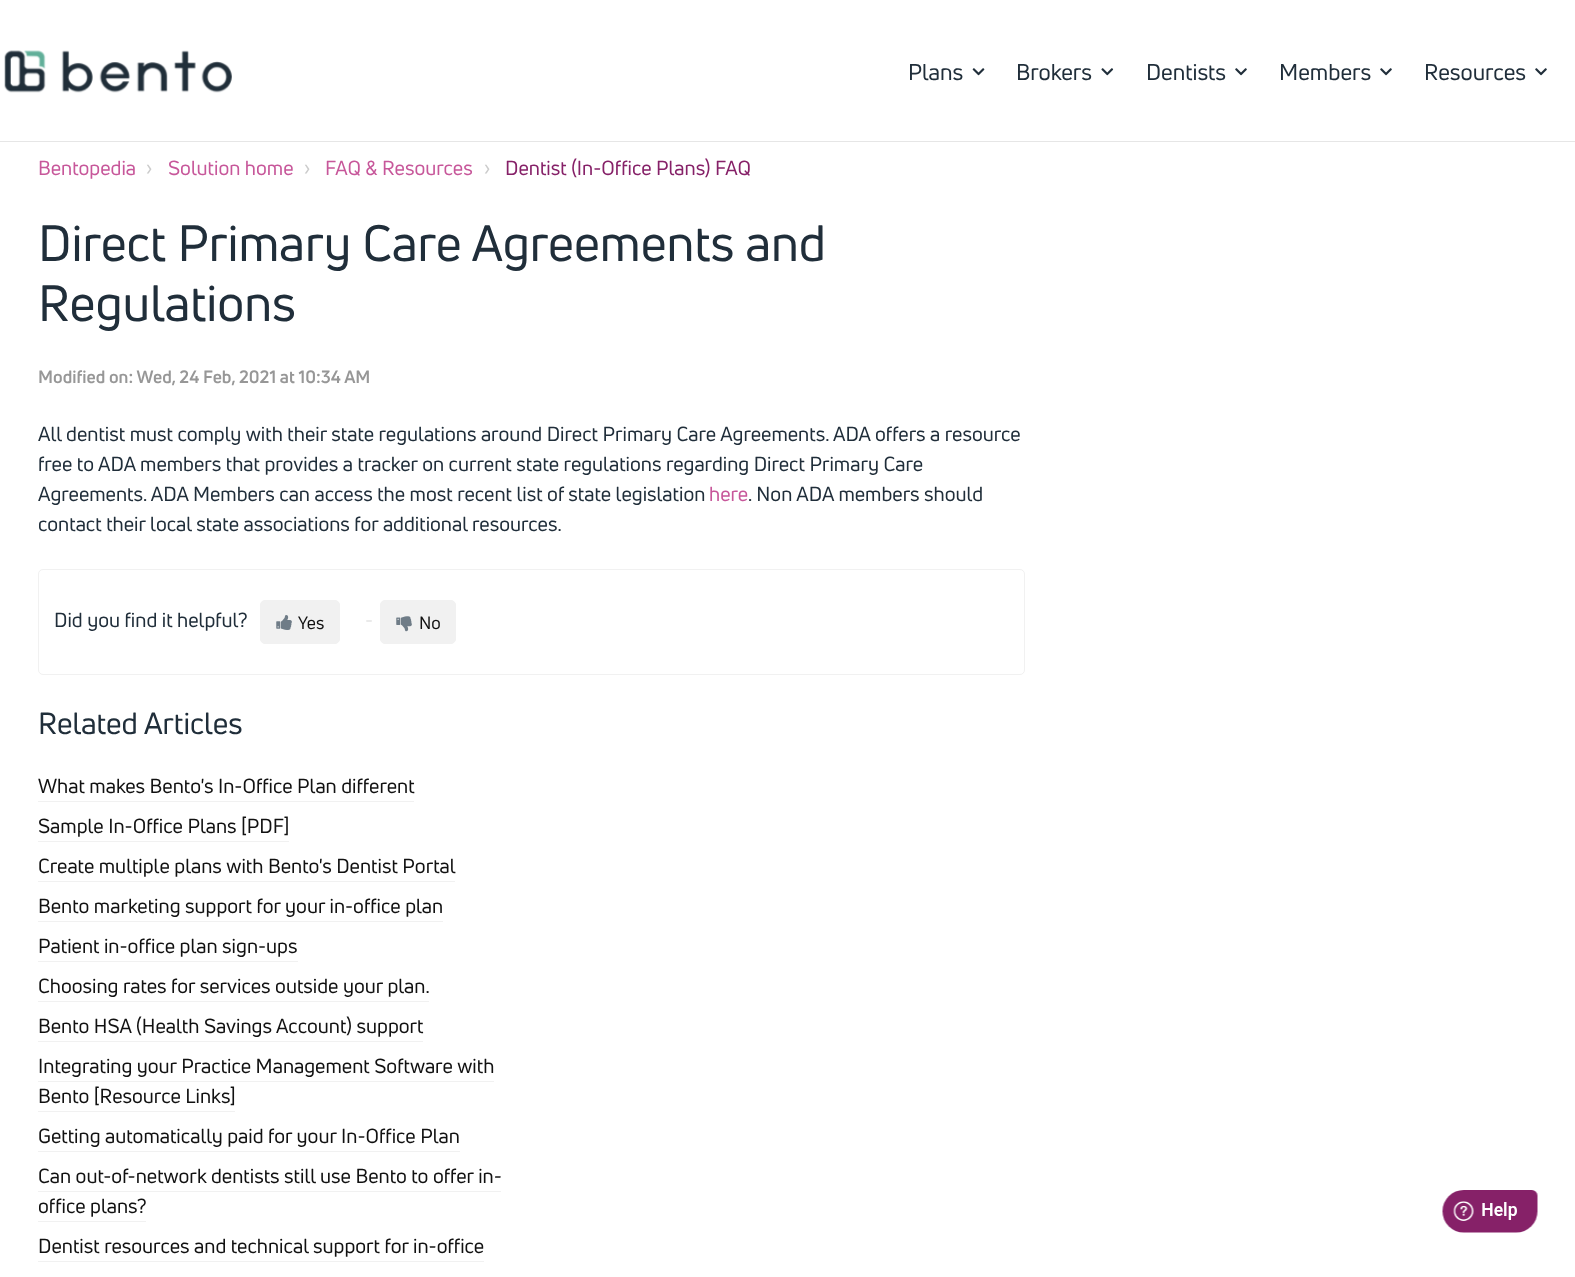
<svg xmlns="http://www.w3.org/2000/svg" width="1575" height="1277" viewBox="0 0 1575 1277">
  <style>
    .t1 { font: 22.5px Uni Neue; fill: #202e3a; }
    .t2 { font: 20px Uni Neue; fill: #c7579a; }
    .t3 { font: 20px Uni Neue; fill: #ccc; }
    .t4 { font: 20px Uni Neue; fill: #862168; }
    .t5 { font: 50px Uni Neue; fill: #202e3a; }
    .t6 { font: bold 17.5px Uni Neue; fill: #979797; }
    .t7 { font: 20px Uni Neue; fill: #202e3a; }
    .t8 { font: 17.5px Uni Neue; fill: #111; }
    .t9 { font: 20px Uni Neue; fill: #e5e5e5; }
    .t10 { font: 30px Uni Neue; fill: #202e3a; }
    .t11 { font: 20px Uni Neue; fill: #111; }
  </style>
  <rect width="100%" height="100%" fill="#fff"/>
  <rect x="0" y="141" width="1575" height="1" fill="#e6e6e6"/>
  <image x="4" y="50" width="228" height="43" href="images/1.png"/>
  <text x="908" y="80" class="t1">Plans</text>
  <image x="972" y="68" width="13" height="8" href="images/2.png"/>
  <text x="1016" y="80" class="t1">Brokers</text>
  <image x="1101" y="68" width="13" height="8" href="images/3.png"/>
  <text x="1146" y="80" class="t1">Dentists</text>
  <image x="1235" y="68" width="12" height="8" href="images/4.png"/>
  <text x="1279" y="80" class="t1">Members</text>
  <image x="1380" y="68" width="12" height="8" href="images/4.png"/>
  <text x="1424" y="80" class="t1">Resources</text>
  <image x="1535" y="68" width="12" height="8" href="images/4.png"/>
  <text x="38" y="175" class="t2">Bentopedia</text>
  <text x="146" y="175" class="t3">›</text>
  <text x="168" y="175" class="t2">Solution home</text>
  <text x="304" y="175" class="t3">›</text>
  <text x="325" y="175" class="t2">FAQ &amp; Resources</text>
  <text x="484" y="175" class="t3">›</text>
  <text x="505" y="175" class="t4">Dentist (In-Office Plans) FAQ</text>
  <text x="38" y="261" class="t5">Direct Primary Care Agreements and</text>
  <text x="38" y="321" class="t5">Regulations</text>
  <text x="38" y="383" class="t6">Modified on: Wed, 24 Feb, 2021 at 10:34 AM</text>
  <text x="38" y="441" class="t7">All dentist must comply with their state regulations around Direct Primary Care Agreements. ADA offers a resource</text>
  <text x="38" y="471" class="t7">free to ADA members that provides a tracker on current state regulations regarding Direct Primary Care</text>
  <text x="38" y="501" class="t7">Agreements. ADA Members can access the most recent list of state legislation</text>
  <text x="709" y="501" class="t2">here</text>
  <text x="748" y="501" class="t7">. Non ADA members should</text>
  <text x="38" y="531" class="t7">contact their local state associations for additional resources.</text>
  <rect x="38.5" y="569.5" width="986" height="105" rx="4.5" fill="none" stroke="#f1f1f1"/>
  <text x="54" y="627" class="t7">Did you find it helpful?</text>
  <rect x="260.5" y="600.5" width="79" height="43" rx="4.5" fill="#f1f1f1" stroke="#f1f1f1"/>
  <image x="276" y="615" width="16" height="15" href="images/5.png"/>
  <text x="298" y="629" class="t8">Yes</text>
  <text x="365" y="627" class="t9">-</text>
  <rect x="380.5" y="600.5" width="75" height="43" rx="4.5" fill="#f1f1f1" stroke="#f1f1f1"/>
  <image x="396" y="616" width="16" height="16" href="images/6.png"/>
  <text x="419" y="629" class="t8">No</text>
  <text x="38" y="734" class="t10">Related Articles</text>
  <text x="38" y="793" class="t11">What makes Bento's In-Office Plan different</text>
  <rect x="38" y="801" width="376" height="1" fill="#f1f1f1"/>
  <text x="38" y="833" class="t11">Sample In-Office Plans [PDF]</text>
  <rect x="38" y="841" width="251" height="1" fill="#f1f1f1"/>
  <text x="38" y="873" class="t11">Create multiple plans with Bento's Dentist Portal</text>
  <rect x="38" y="881" width="417" height="1" fill="#f1f1f1"/>
  <text x="38" y="913" class="t11">Bento marketing support for your in-office plan</text>
  <rect x="38" y="921" width="405" height="1" fill="#f1f1f1"/>
  <text x="38" y="953" class="t11">Patient in-office plan sign-ups</text>
  <rect x="38" y="961" width="260" height="1" fill="#f1f1f1"/>
  <text x="38" y="993" class="t11">Choosing rates for services outside your plan.</text>
  <rect x="38" y="1001" width="391" height="1" fill="#f1f1f1"/>
  <text x="38" y="1033" class="t11">Bento HSA (Health Savings Account) support</text>
  <rect x="38" y="1041" width="385" height="1" fill="#f1f1f1"/>
  <text x="38" y="1073" class="t11">Integrating your Practice Management Software with</text>
  <rect x="38" y="1081" width="456" height="1" fill="#f1f1f1"/>
  <text x="38" y="1103" class="t11">Bento [Resource Links]</text>
  <rect x="38" y="1111" width="197" height="1" fill="#f1f1f1"/>
  <text x="38" y="1143" class="t11">Getting automatically paid for your In-Office Plan</text>
  <rect x="38" y="1151" width="422" height="1" fill="#f1f1f1"/>
  <text x="38" y="1183" class="t11">Can out-of-network dentists still use Bento to offer in-</text>
  <rect x="38" y="1191" width="463" height="1" fill="#f1f1f1"/>
  <text x="38" y="1213" class="t11">office plans?</text>
  <rect x="38" y="1221" width="108" height="1" fill="#f1f1f1"/>
  <text x="38" y="1253" class="t11">Dentist resources and technical support for in-office</text>
  <rect x="38" y="1261" width="446" height="1" fill="#f1f1f1"/>
  <image x="1442" y="1190" width="96" height="43" href="images/7.png"/>
</svg>
